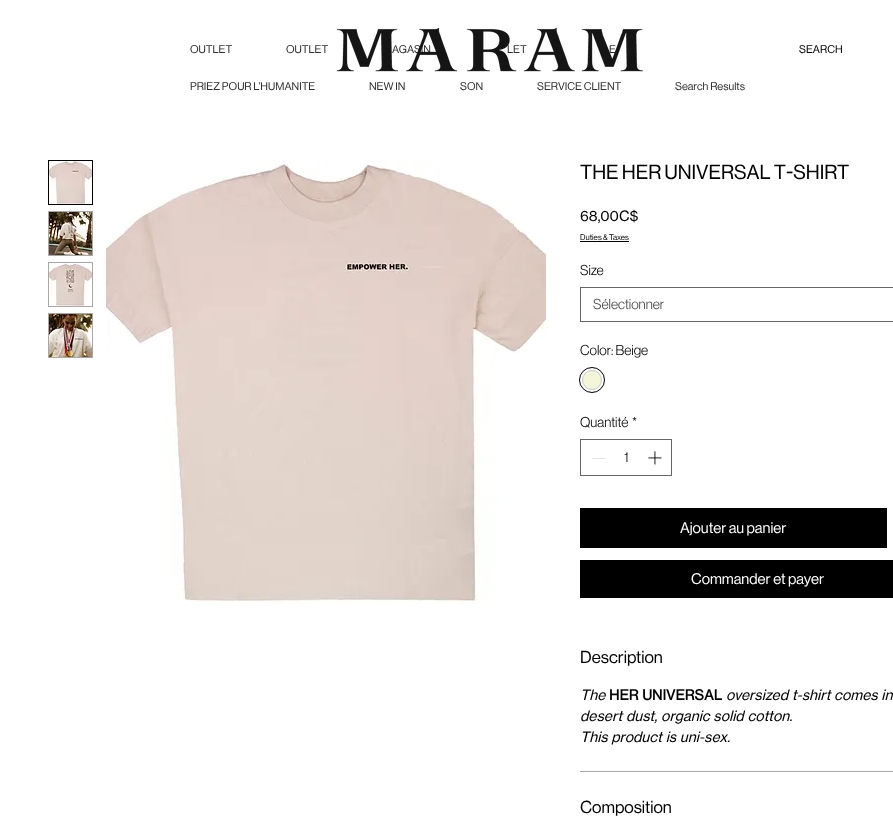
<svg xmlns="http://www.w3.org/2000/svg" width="893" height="839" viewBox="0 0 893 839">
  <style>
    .t1 { font: 11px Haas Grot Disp; fill: #2e302f; }
    .t2 { font: 11px Haas Grot Disp; fill: #000; }
    .t3 { font: 20px Haas Grot Disp; fill: #000; }
    .t4 { font: 14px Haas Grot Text; fill: #000; }
    .t5 { font: 8px Haas Grot Disp; fill: #000; }
    .t6 { font: 300 14px Haas Grot Disp; fill: #000; }
    .t7 { font: 300 14px Haas Grot Disp; fill: #444; }
    .t8 { font: 15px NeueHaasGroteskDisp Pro; fill: #fff; }
    .t9 { font: 15px Haas Grot Disp; fill: #fff; }
    .t10 { font: 17px Haas Grot Disp; fill: #000; }
    .t11 { font: italic 14px Haas Grot Text; fill: #000; }
    .t12 { font: bold 14px Haas Grot Text; fill: #000; }
  </style>
  <rect width="100%" height="100%" fill="#fff"/>
  <text x="392" y="53" class="t1">AGASIN</text>
  <text x="507" y="53" class="t1">LET</text>
  <text x="609" y="53" class="t1">E</text>
  <image x="336" y="27" width="307" height="45" href="images/1.png"/>
  <text x="190" y="53" class="t1">OUTLET</text>
  <text x="286" y="53" class="t1">OUTLET</text>
  <text x="190" y="90" class="t1">PRIEZ POUR L'HUMANITE</text>
  <text x="369" y="90" class="t1">NEW IN</text>
  <text x="460" y="90" class="t1">SON</text>
  <text x="537" y="90" class="t1">SERVICE CLIENT</text>
  <text x="675" y="90" class="t1">Search Results</text>
  <text x="799" y="53" class="t2">SEARCH</text>
  <rect x="48.5" y="160.5" width="44" height="44" fill="none" stroke="#000"/>
  <image x="49" y="161" width="43" height="43" href="images/2.png"/>
  <rect x="48.5" y="211.5" width="44" height="44" fill="none" stroke="#a7a8a7"/>
  <image x="49" y="212" width="43" height="43" href="images/3.png"/>
  <rect x="48.5" y="262.5" width="44" height="44" fill="none" stroke="#a7a8a7"/>
  <image x="49" y="263" width="43" height="43" href="images/4.png"/>
  <rect x="48.5" y="313.5" width="44" height="44" fill="none" stroke="#a7a8a7"/>
  <image x="49" y="314" width="43" height="43" href="images/5.png"/>
  <image x="106" y="161" width="440" height="444" href="images/6.png"/>
  <text x="580" y="179" class="t3">THE HER UNIVERSAL T-SHIRT</text>
  <text x="580" y="221" class="t4">68,00C$</text>
  <text x="580" y="240" class="t5">Duties &amp; Taxes</text>
  <rect x="580" y="241" width="49" height="1" fill="#000"/>
  <text x="580" y="275" class="t6">Size</text>
  <rect x="580.5" y="287.5" width="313" height="34" fill="none" stroke="#666"/>
  <text x="593" y="309" class="t7">Sélectionner</text>
  <text x="580" y="355" class="t6">Color: Beige</text>
  <circle cx="592" cy="380" r="12.5" fill="none" stroke="#000"/>
  <circle cx="592" cy="380" r="9.5" fill="#f5f5dc" stroke="#c9c9c9"/>
  <text x="580" y="427" class="t6">Quantité</text>
  <text x="632" y="427" class="t6">*</text>
  <rect x="580.5" y="439.5" width="91" height="36" fill="none" stroke="#666"/>
  <rect x="592" y="458" width="13" height="1" fill="#e3e3e3"/>
  <text x="624" y="462" class="t6">1</text>
  <image x="648" y="451" width="14" height="14" href="images/7.png"/>
  <rect x="580" y="508" width="307" height="40" fill="#000"/>
  <text x="680" y="533" class="t8">Ajouter au panier</text>
  <rect x="580" y="560" width="313" height="38" fill="#000"/>
  <text x="691" y="584" class="t9">Commander et payer</text>
  <rect x="580" y="771" width="313" height="1" fill="#a7a8a7"/>
  <text x="580" y="663" class="t10">Description</text>
  <text x="580" y="700" class="t11">The</text>
  <text x="609" y="700" class="t12">HER UNIVERSAL</text>
  <text x="726" y="700" class="t11">oversized t-shirt comes in</text>
  <text x="580" y="721" class="t11">desert dust, organic solid cotton.</text>
  <text x="580" y="742" class="t11">This product is uni-sex.</text>
  <text x="580" y="813" class="t10">Composition</text>
</svg>
